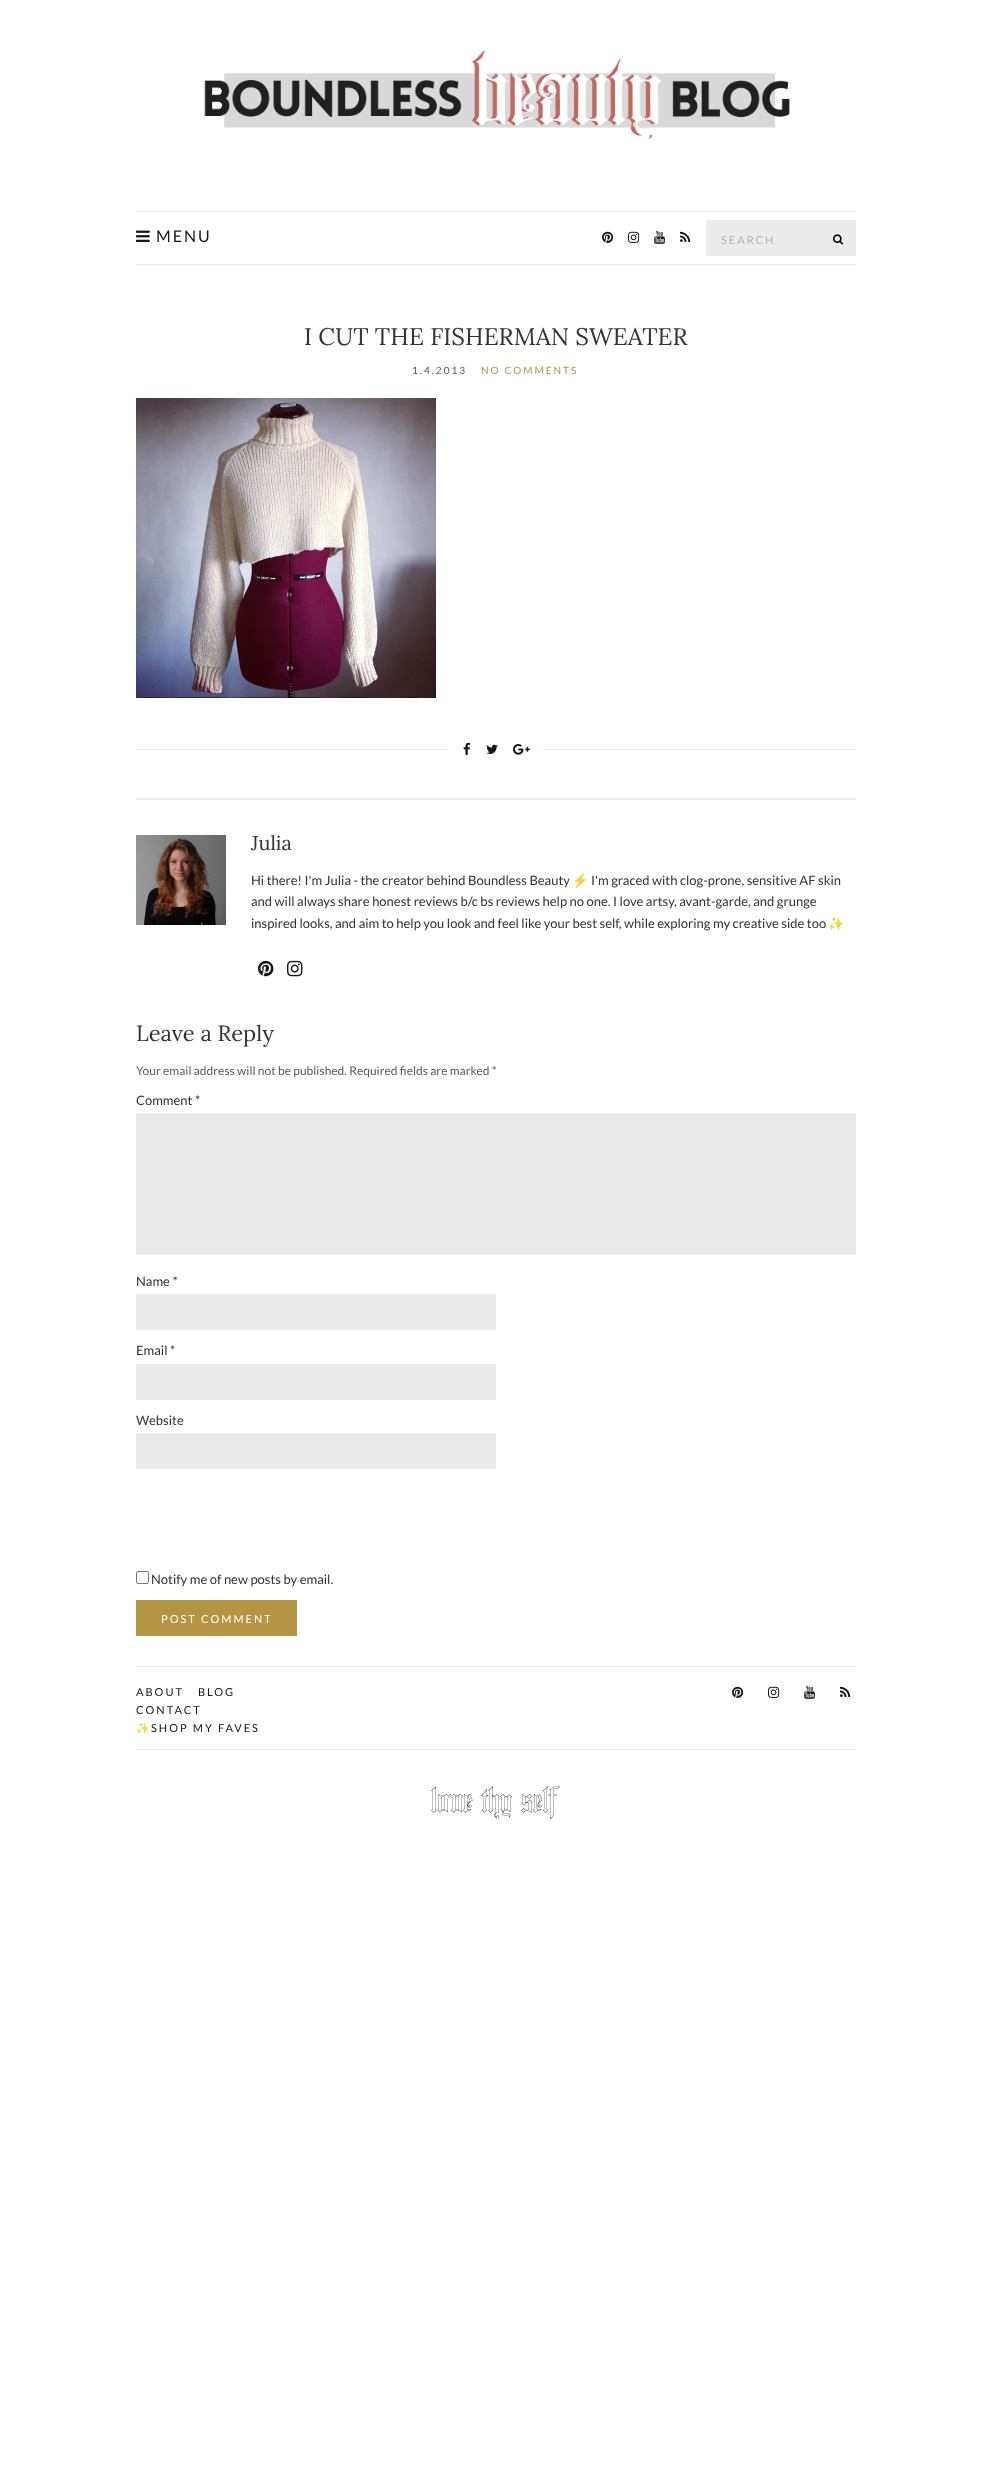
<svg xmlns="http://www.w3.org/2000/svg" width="991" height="2485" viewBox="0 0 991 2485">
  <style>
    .t1 { font: 16px Lato; letter-spacing: 2px; fill: #161616; }
    .t2 { font: 11px Lato; letter-spacing: 2px; fill: #b4b4b4; }
    .t3 { font: 24px Lora; fill: #333; }
    .t4 { font: 10px Lato; letter-spacing: 2px; fill: #545454; }
    .t5 { font: 10px Lato; letter-spacing: 2px; fill: #b49543; }
    .t6 { font: 20px Lora; fill: #333; }
    .t7 { font: 13px Lato; fill: #333; }
    .t8 { font: 13px Noto Color Emoji; fill: #333; }
    .t9 { font: 22px Lora; fill: #333; }
    .t10 { font: 12px Lato; fill: #5c5c5c; }
    .t11 { font: 11px Lato; letter-spacing: 2px; fill: #fff; }
    .t12 { font: 11px Lato; letter-spacing: 2px; fill: #161616; }
    .t13 { font: 11px Noto Color Emoji; letter-spacing: 2px; fill: #161616; }
  </style>
  <rect width="100%" height="100%" fill="#fff"/>
  <image x="204" y="50" width="586" height="89" href="images/1.png"/>
  <rect x="136" y="211" width="720" height="1" fill="#ebebeb"/>
  <rect x="136" y="264" width="720" height="1" fill="#ebebeb"/>
  <image x="136" y="230" width="14" height="12" href="images/2.png"/>
  <text x="156" y="242" class="t1">MENU</text>
  <image x="602" y="231" width="12" height="12" href="images/3.png"/>
  <image x="628" y="231" width="12" height="12" href="images/4.png"/>
  <image x="654" y="230" width="11" height="14" href="images/5.png"/>
  <image x="680" y="231" width="11" height="11" href="images/6.png"/>
  <rect x="706" y="220" width="150" height="36" fill="#ebebeb"/>
  <text x="721" y="244" class="t2">SEARCH</text>
  <image x="833" y="234" width="11" height="11" href="images/7.png"/>
  <text x="304" y="345" class="t3">I CUT THE FISHERMAN SWEATER</text>
  <text x="412" y="374" class="t4">1.4.2013</text>
  <text x="481" y="374" class="t5">NO COMMENTS</text>
  <image x="136" y="398" width="300" height="300" href="images/8.png"/>
  <rect x="136" y="749" width="720" height="1" fill="#ebebeb"/>
  <rect x="448" y="749" width="95" height="1" fill="#fff"/>
  <image x="463" y="742" width="7" height="13" href="images/9.png"/>
  <image x="486" y="744" width="12" height="10" href="images/10.png"/>
  <image x="513" y="744" width="17" height="11" href="images/11.png"/>
  <rect x="136" y="798" width="720" height="2" fill="#ebebeb"/>
  <image x="136" y="835" width="90" height="90" href="images/12.png"/>
  <text x="251" y="850" class="t6">Julia</text>
  <text x="251" y="885" class="t7">Hi there! I'm Julia - the creator behind Boundless Beauty</text>
  <text x="572" y="885" class="t8">⚡️</text>
  <text x="591" y="885" class="t7">I'm graced with clog-prone, sensitive AF skin</text>
  <text x="251" y="906" class="t7">and will always share honest reviews b/c bs reviews help no one. I love artsy, avant-garde, and grunge</text>
  <text x="251" y="928" class="t7">inspired looks, and aim to help you look and feel like your best self, while exploring my creative side too</text>
  <text x="828" y="928" class="t8">✨</text>
  <image x="258" y="960" width="16" height="17" href="images/13.png"/>
  <image x="287" y="960" width="16" height="17" href="images/14.png"/>
  <text x="136" y="1041" class="t9">Leave a Reply</text>
  <text x="136" y="1075" class="t10">Your email address will not be published. Required fields are marked *</text>
  <text x="136" y="1105" class="t7">Comment *</text>
  <rect x="136" y="1113" width="720" height="142" fill="#ebebeb"/>
  <text x="136" y="1286" class="t7">Name *</text>
  <rect x="136" y="1294" width="360" height="36" fill="#ebebeb"/>
  <text x="136" y="1355" class="t7">Email *</text>
  <rect x="136" y="1364" width="360" height="36" fill="#ebebeb"/>
  <text x="136" y="1425" class="t7">Website</text>
  <rect x="136" y="1433" width="360" height="36" fill="#ebebeb"/>
  <rect x="136.5" y="1571.5" width="12" height="12" rx="1.5" fill="none" stroke="#767676"/>
  <text x="151" y="1584" class="t7">Notify me of new posts by email.</text>
  <rect x="136" y="1600" width="161" height="36" fill="#b49543"/>
  <text x="161" y="1623" class="t11">POST COMMENT</text>
  <rect x="136" y="1666" width="720" height="1" fill="#ebebeb"/>
  <rect x="136" y="1749" width="720" height="1" fill="#ebebeb"/>
  <text x="136" y="1696" class="t12">ABOUT</text>
  <text x="198" y="1696" class="t12">BLOG</text>
  <text x="136" y="1714" class="t12">CONTACT</text>
  <text x="136" y="1732" class="t13">✨</text>
  <text x="151" y="1732" class="t12">SHOP MY FAVES</text>
  <image x="732" y="1686" width="12" height="12" href="images/3.png"/>
  <image x="768" y="1686" width="12" height="12" href="images/4.png"/>
  <image x="804" y="1685" width="11" height="14" href="images/5.png"/>
  <image x="840" y="1686" width="11" height="11" href="images/6.png"/>
  <image x="431" y="1786" width="129" height="34" href="images/15.png"/>
</svg>
